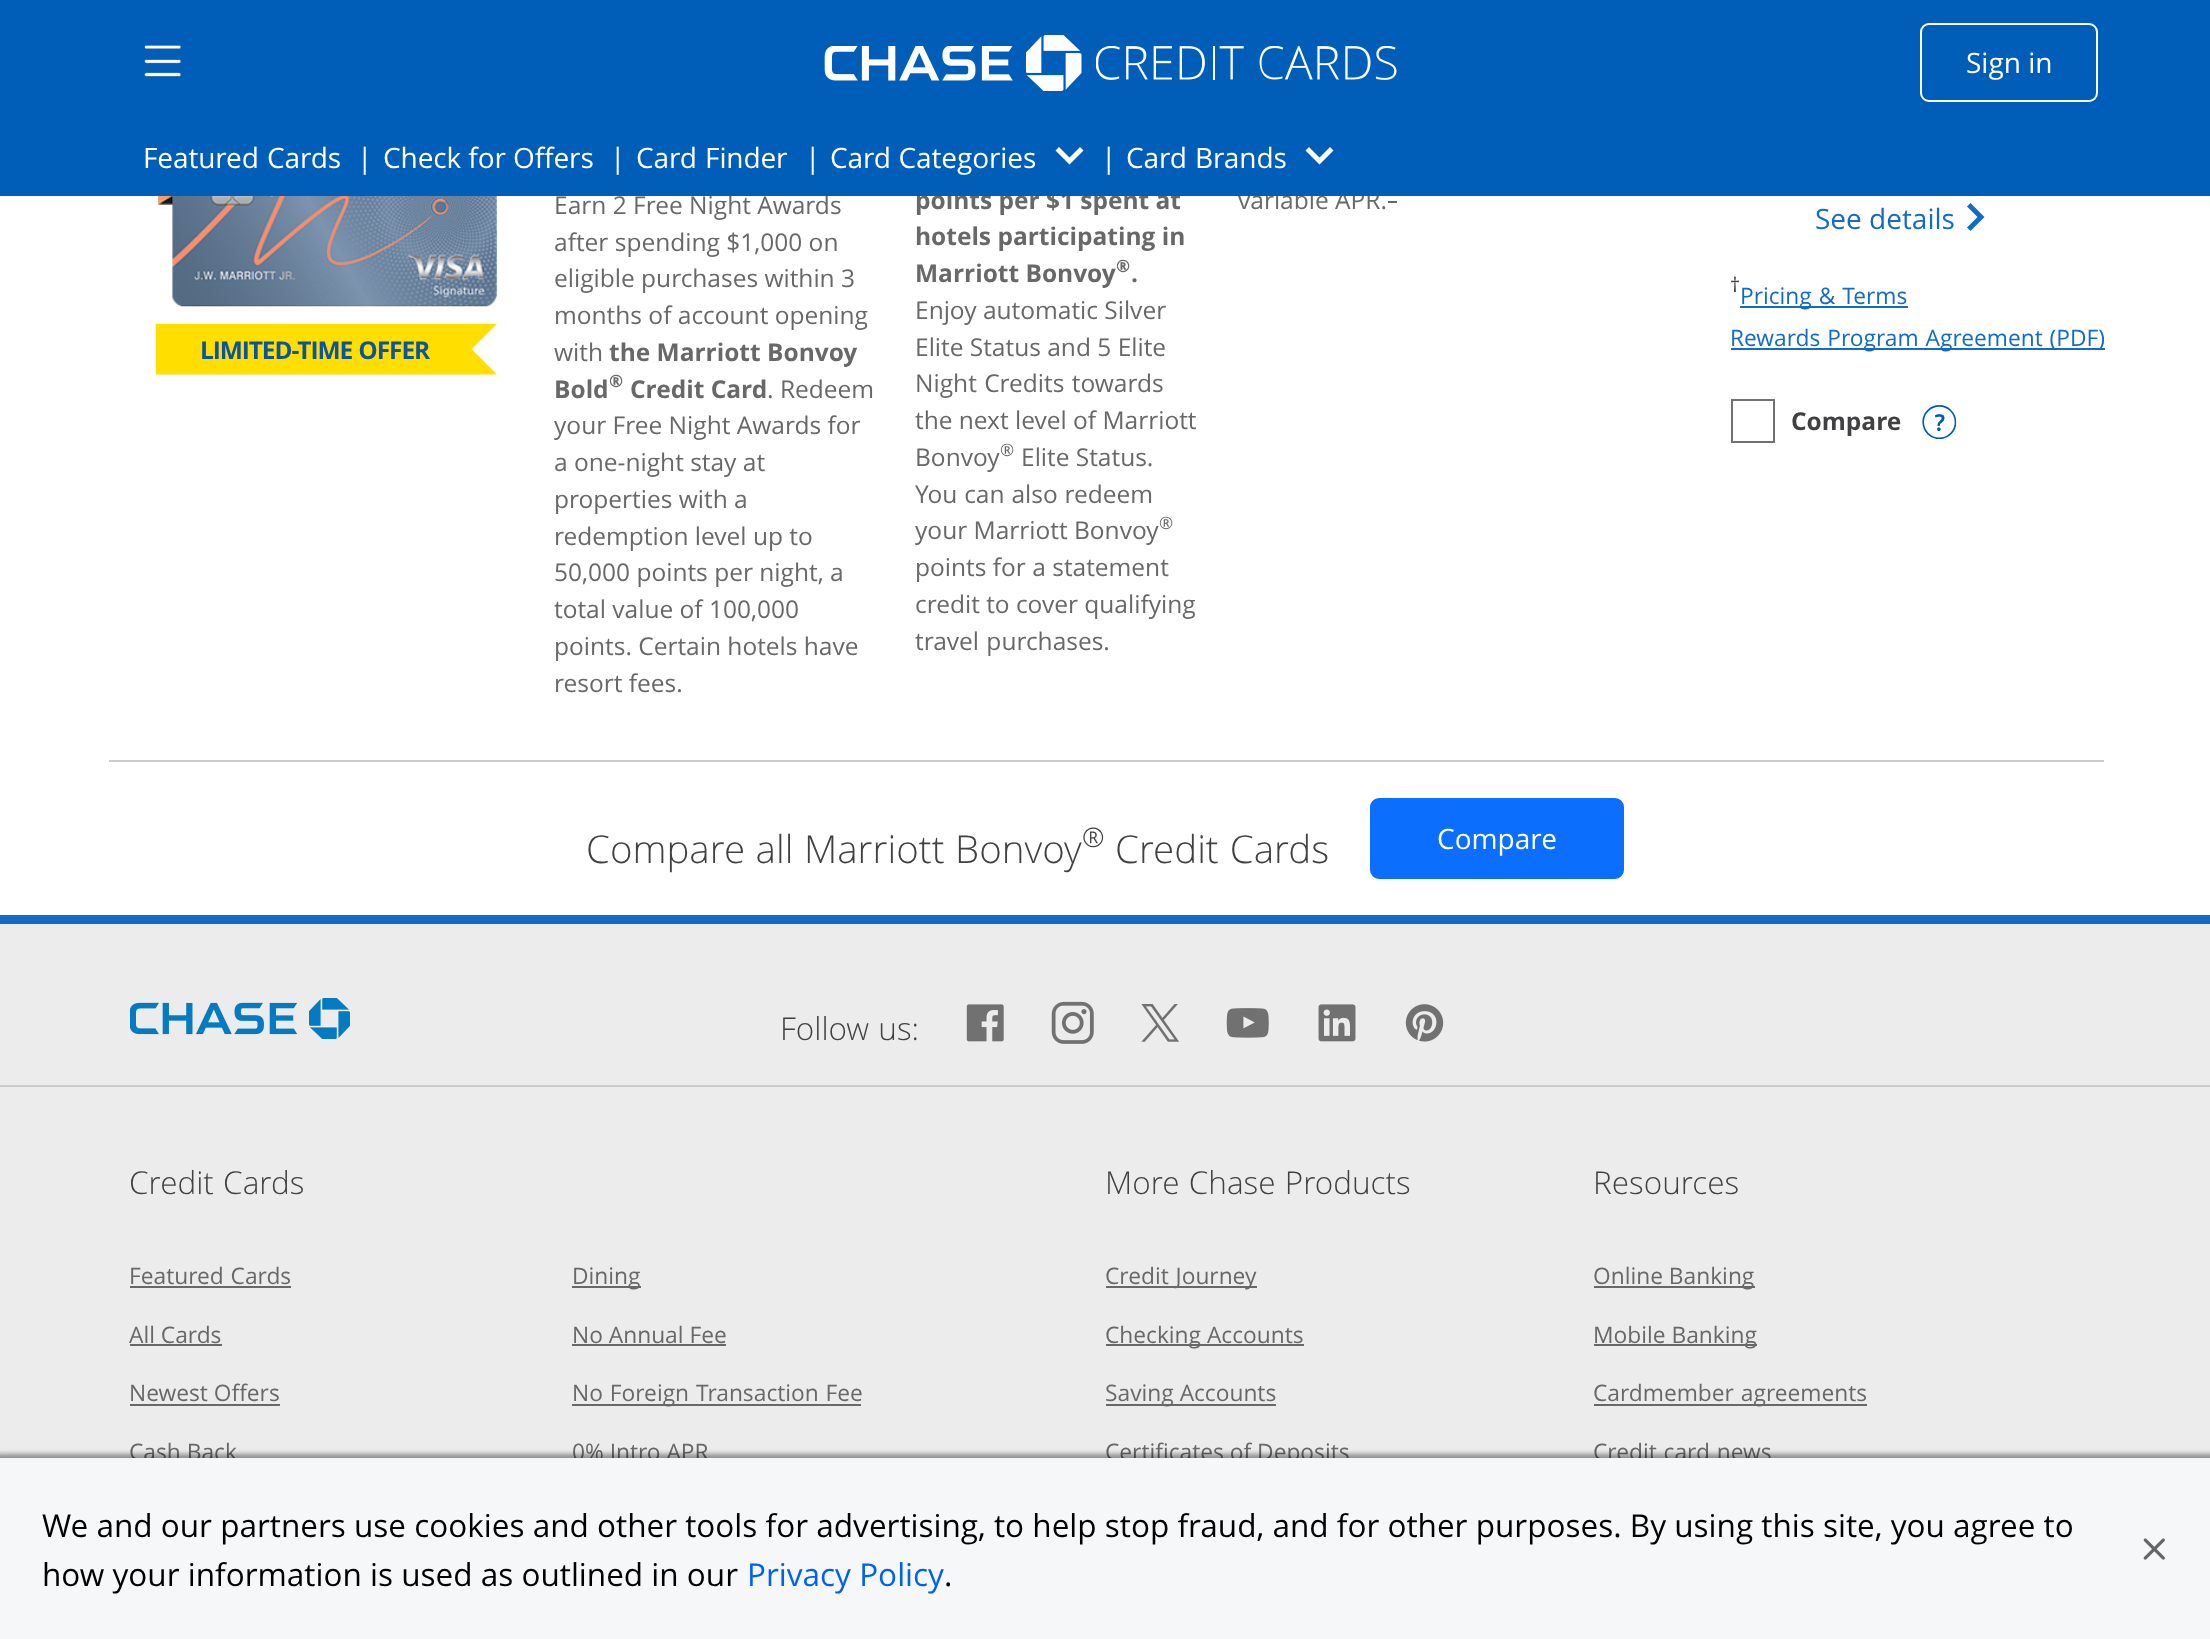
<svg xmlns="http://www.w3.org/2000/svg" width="2210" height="1639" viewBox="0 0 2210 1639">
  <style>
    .t1 { font: 24.5px Open Sans; fill: #686868; }
    .t2 { font: bold 24.5px Open Sans; fill: #686868; }
    .t3 { font: 28px Open Sans; fill: #fff; }
    .t4 { font: 28px Open Sans; letter-spacing: -0.1px; fill: #fff; }
    .t5 { font: bold 24.5px Open Sans; letter-spacing: -1.1px; fill: #0b549e; }
    .t6 { font: bold 17px Open Sans; fill: #686868; }
    .t7 { font: 17px Open Sans; fill: #686868; }
    .t8 { font: 28px Open Sans; fill: #126bc5; }
    .t9 { font: 20px Open Sans; fill: #414042; }
    .t10 { font: 22.75px Open Sans; fill: #126bc5; }
    .t11 { font: bold 24.5px Open Sans; fill: #414042; }
    .t12 { font: 300 38.5px Open Sans; fill: #414042; }
    .t13 { font: 300 27px Open Sans; fill: #414042; }
    .t14 { font: 300 31.5px Open Sans; fill: #414042; }
    .t15 { font: 22.75px Open Sans; fill: #686868; }
    .t16 { font: 31.5px Open Sans; fill: #000; }
    .t17 { font: 31.5px Open Sans; fill: #0060f0; }
  </style>
  <rect width="100%" height="100%" fill="#ececec"/>
  <rect x="0" y="196" width="2210" height="719" fill="#fff"/>
  <text x="554" y="214" class="t1">Earn 2 Free Night Awards</text>
  <text x="915" y="209" class="t2">points per $1 spent at</text>
  <text x="1238" y="209" class="t1">variable APR.</text>
  <rect x="0" y="0" width="2210" height="196" fill="#005eb8"/>
  <image x="144" y="45" width="37" height="32" href="images/1.png"/>
  <image x="824" y="46" width="189" height="35" href="images/2.png"/>
  <image x="1026" y="35" width="56" height="56" href="images/3.png"/>
  <image x="1096" y="46" width="301" height="34" href="images/4.png"/>
  <rect x="1921" y="24" width="176" height="77" rx="8" fill="none" stroke="#fff" stroke-width="2"/>
  <text x="1966" y="73" class="t3">Sign in</text>
  <text x="143" y="168" word-spacing="1" class="t4">Featured Cards</text>
  <text x="357" y="168" class="t4">|</text>
  <text x="383" y="168" class="t4">Check for Offers</text>
  <text x="610" y="168" class="t4">|</text>
  <text x="636" y="168" word-spacing="1" class="t4">Card Finder</text>
  <text x="805" y="168" class="t4">|</text>
  <text x="830" y="168" word-spacing="0.5" class="t4">Card Categories</text>
  <path d="M1083.5 150.5L1069.5 164.5L1055.5 150.5L1059 147L1069.5 157.5L1080 147Z" fill="#fff"/>
  <text x="1101" y="168" class="t4">|</text>
  <text x="1126" y="168" word-spacing="1" class="t4">Card Brands</text>
  <path d="M1333.5 150.5L1319.5 164.5L1305.5 150.5L1309 147L1319.5 157.5L1330 147Z" fill="#fff"/>
  <rect x="109" y="760" width="1995" height="2" fill="#ccc"/>
  <image x="157" y="196" width="340" height="111" href="images/5.png"/>
  <image x="155" y="323" width="342" height="52" href="images/6.png"/>
  <text x="200" y="359" word-spacing="1" class="t5">LIMITED-TIME OFFER</text>
  <text x="554" y="251" class="t1">after spending $1,000 on</text>
  <text x="554" y="287" class="t1">eligible purchases within 3</text>
  <text x="554" y="324" class="t1">months of account opening</text>
  <text x="554" y="361" class="t1">with</text>
  <text x="609" y="361" class="t2">the Marriott Bonvoy</text>
  <text x="554" y="398" class="t2">Bold</text>
  <text x="609" y="387" class="t6">®</text>
  <text x="630" y="398" class="t2">Credit Card</text>
  <text x="767" y="398" class="t1">. Redeem</text>
  <text x="554" y="434" class="t1">your Free Night Awards for</text>
  <text x="554" y="471" class="t1">a one-night stay at</text>
  <text x="554" y="508" class="t1">properties with a</text>
  <text x="554" y="545" class="t1">redemption level up to</text>
  <text x="554" y="581" class="t1">50,000 points per night, a</text>
  <text x="554" y="618" class="t1">total value of 100,000</text>
  <text x="554" y="655" class="t1">points. Certain hotels have</text>
  <text x="554" y="692" class="t1">resort fees.</text>
  <text x="915" y="245" class="t2">hotels participating in</text>
  <text x="915" y="282" class="t2">Marriott Bonvoy</text>
  <text x="1116" y="272" class="t6">®</text>
  <text x="1131" y="282" class="t2">.</text>
  <text x="915" y="319" class="t1">Enjoy automatic Silver</text>
  <text x="915" y="356" class="t1">Elite Status and 5 Elite</text>
  <text x="915" y="392" word-spacing="1" class="t1">Night Credits towards</text>
  <text x="915" y="429" class="t1">the next level of Marriott</text>
  <text x="915" y="466" class="t1">Bonvoy</text>
  <text x="1000" y="456" class="t7">®</text>
  <text x="1021" y="466" class="t1">Elite Status.</text>
  <text x="915" y="503" word-spacing="0.5" class="t1">You can also redeem</text>
  <text x="915" y="539" class="t1">your Marriott Bonvoy</text>
  <text x="1159" y="529" class="t7">®</text>
  <text x="915" y="576" class="t1">points for a statement</text>
  <text x="915" y="613" class="t1">credit to cover qualifying</text>
  <text x="915" y="650" word-spacing="1" class="t1">travel purchases.</text>
  <rect x="1388" y="201" width="9" height="2" fill="#686868"/>
  <text x="1815" y="229" class="t8">See details</text>
  <path d="M1970.5 203L1984.5 217L1970.5 231L1967 227.5L1977.5 217L1967 206.5Z" fill="#126bc5"/>
  <text x="1730" y="292" class="t9">†</text>
  <rect x="1740" y="306" width="168" height="2" fill="#126bc5"/>
  <text x="1740" y="304" word-spacing="1" class="t10">Pricing &amp; Terms</text>
  <rect x="1731" y="348" width="374" height="2" fill="#126bc5"/>
  <text x="1730" y="346" word-spacing="1" class="t10">Rewards Program Agreement (PDF)</text>
  <rect x="1732" y="400" width="42" height="42" fill="none" stroke="#717171" stroke-width="2"/>
  <text x="1791" y="430" class="t11">Compare</text>
  <image x="1922" y="405" width="35" height="34" href="images/7.png"/>
  <text x="586" y="863" word-spacing="0.5" class="t12">Compare all Marriott Bonvoy</text>
  <text x="1082" y="847" class="t13">®</text>
  <text x="1115" y="863" word-spacing="1" class="t12">Credit Cards</text>
  <rect x="1371" y="799" width="252" height="79" rx="8" fill="#0b6efd" stroke="#0b6efd" stroke-width="2"/>
  <text x="1437" y="849" class="t3">Compare</text>
  <rect x="0" y="915" width="2210" height="9" fill="#126bc5"/>
  <rect x="0" y="1085" width="2210" height="2" fill="#ccc"/>
  <image x="130" y="998" width="220" height="41" href="images/8.png"/>
  <text x="780" y="1040" word-spacing="1" class="t14">Follow us:</text>
  <image x="966" y="1004" width="38" height="38" href="images/9.png"/>
  <image x="1051" y="1001" width="43" height="43" href="images/10.png"/>
  <image x="1141" y="1004" width="38" height="38" href="images/11.png"/>
  <image x="1226" y="1008" width="43" height="30" href="images/12.png"/>
  <image x="1318" y="1004" width="38" height="38" href="images/13.png"/>
  <image x="1405" y="1004" width="39" height="38" href="images/14.png"/>
  <text x="129" y="1194" word-spacing="1" class="t14">Credit Cards</text>
  <text x="129" y="1284" word-spacing="1" class="t15">Featured Cards</text>
  <rect x="130" y="1286" width="161" height="2" fill="#686868"/>
  <rect x="572" y="1286" width="69" height="2" fill="#686868"/>
  <text x="572" y="1284" class="t15">Dining</text>
  <text x="129" y="1343" class="t15">All Cards</text>
  <rect x="130" y="1344" width="92" height="2" fill="#686868"/>
  <text x="572" y="1343" class="t15">No Annual Fee</text>
  <rect x="572" y="1344" width="154" height="2" fill="#686868"/>
  <text x="129" y="1401" class="t15">Newest Offers</text>
  <rect x="130" y="1404" width="150" height="2" fill="#686868"/>
  <rect x="572" y="1404" width="289" height="2" fill="#686868"/>
  <text x="572" y="1401" word-spacing="1" class="t15">No Foreign Transaction Fee</text>
  <text x="129" y="1460" class="t15">Cash Back</text>
  <text x="572" y="1460" class="t15">0% Intro APR</text>
  <text x="1105" y="1194" word-spacing="1" class="t14">More Chase Products</text>
  <rect x="1106" y="1286" width="151" height="2" fill="#686868"/>
  <text x="1105" y="1284" word-spacing="1" class="t15">Credit Journey</text>
  <rect x="1106" y="1344" width="198" height="2" fill="#686868"/>
  <text x="1105" y="1343" class="t15">Checking Accounts</text>
  <rect x="1106" y="1404" width="170" height="2" fill="#686868"/>
  <text x="1105" y="1401" class="t15">Saving Accounts</text>
  <text x="1105" y="1460" class="t15">Certificates of Deposits</text>
  <text x="1593" y="1194" class="t14">Resources</text>
  <rect x="1594" y="1286" width="161" height="2" fill="#686868"/>
  <text x="1593" y="1284" class="t15">Online Banking</text>
  <rect x="1594" y="1344" width="163" height="2" fill="#686868"/>
  <text x="1593" y="1343" class="t15">Mobile Banking</text>
  <rect x="1594" y="1404" width="273" height="2" fill="#686868"/>
  <text x="1593" y="1401" word-spacing="1" class="t15">Cardmember agreements</text>
  <text x="1593" y="1460" word-spacing="1" class="t15">Credit card news</text>
  <rect x="-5" y="1454" width="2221" height="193" fill="#00000066" filter="blur(2.5px)"/>
  <rect x="0" y="1458" width="2210" height="181" fill="#f5f7f8"/>
  <text x="42" y="1537" class="t16">We and our partners use cookies and other tools for advertising, to help stop fraud, and for other purposes. By using this site, you agree to</text>
  <text x="42" y="1586" class="t16">how your information is used as outlined in our</text>
  <text x="747" y="1586" class="t17">Privacy Policy</text>
  <text x="944" y="1586" class="t16">.</text>
  <image x="2143" y="1538" width="22" height="22" href="images/15.png"/>
</svg>
